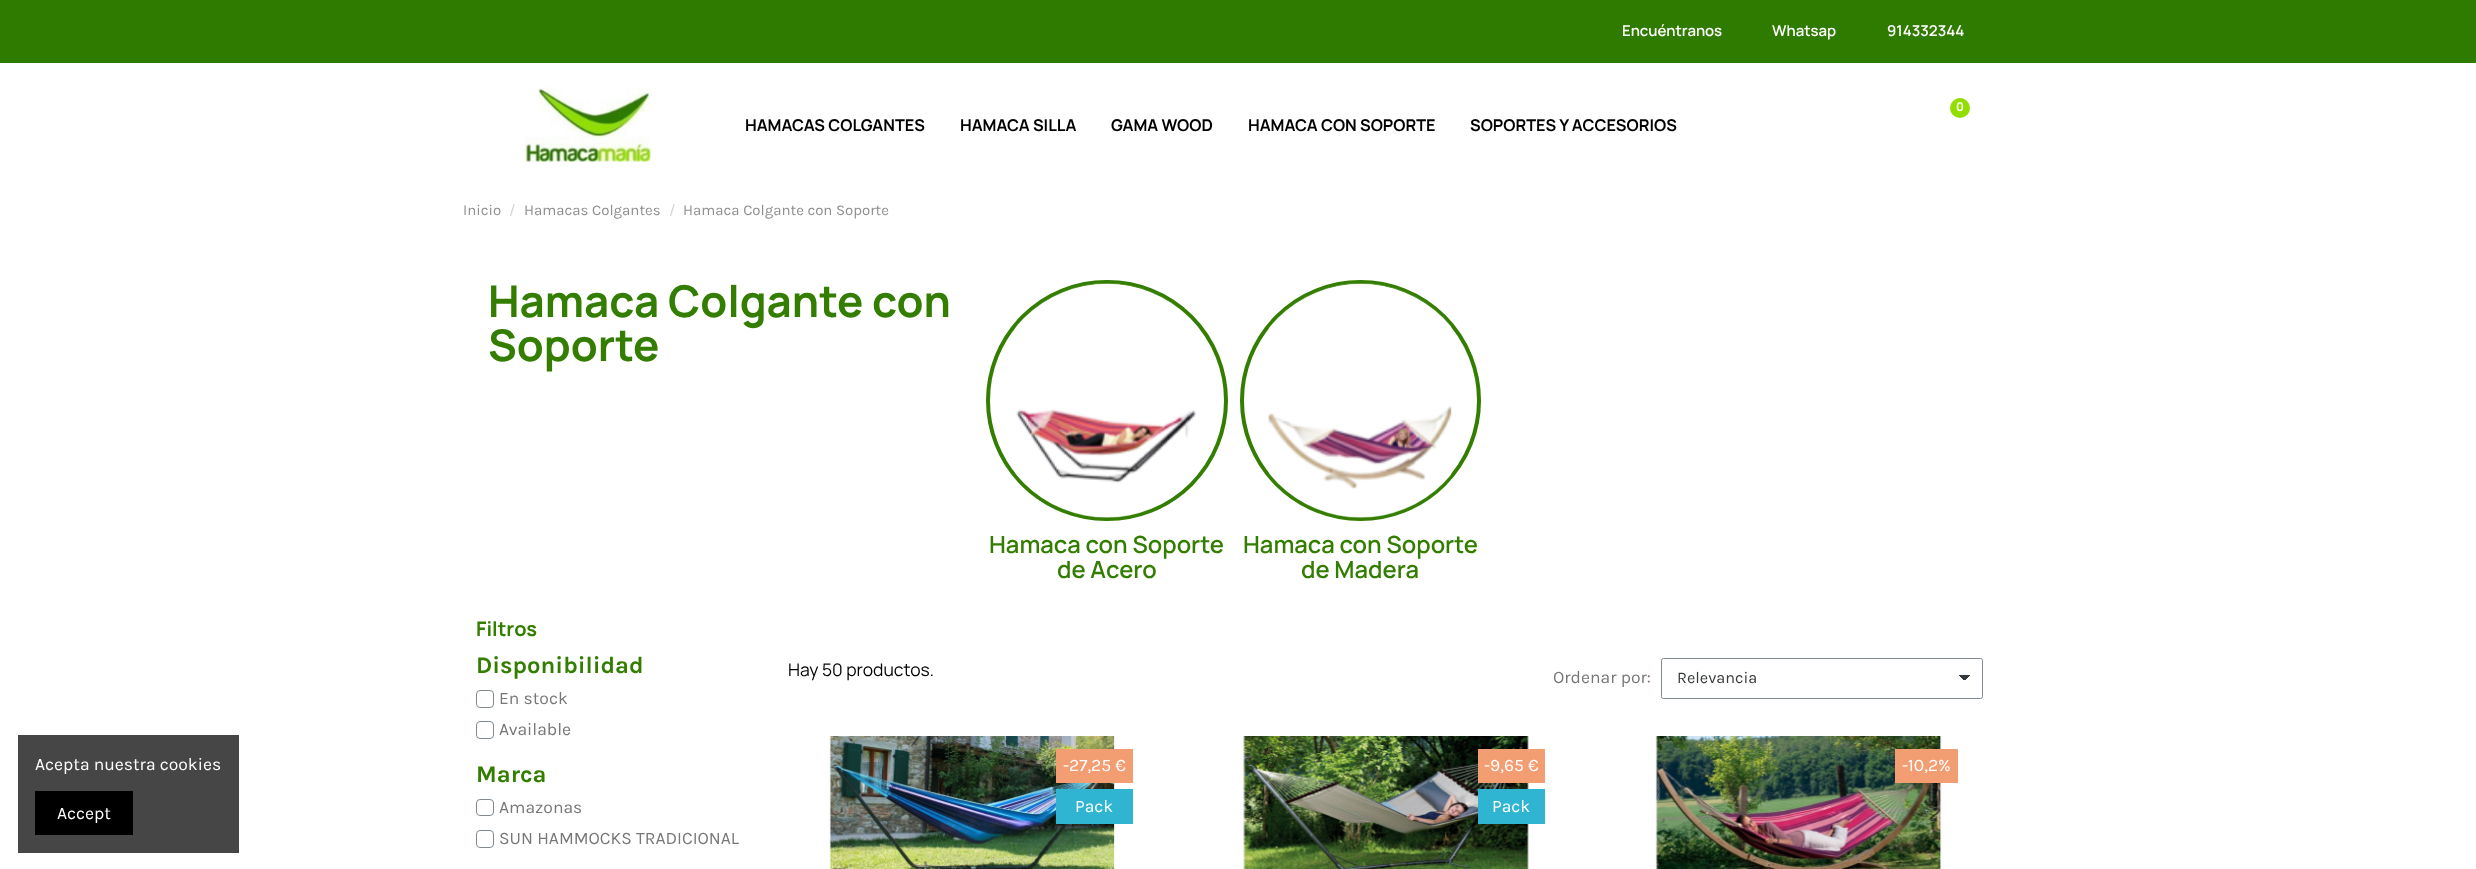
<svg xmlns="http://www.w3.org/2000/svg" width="2476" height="869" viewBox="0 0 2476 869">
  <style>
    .t1 { font: 17.5px Karla; fill: #fff; }
    .t2 { font: 600 15px Manrope; fill: #fff; }
    .t3 { font: bold 12px Manrope; fill: #fff; }
    .t4 { font: bold 16.25px Manrope; fill: #000; }
    .t5 { font: 15px Karla; fill: #8f8f8f; }
    .t6 { font: 15px Karla; fill: #d2d2d2; }
    .t7 { font: bold 43.75px Manrope; fill: #337e00; }
    .t8 { font: 600 23.75px Manrope; fill: #337e00; }
    .t9 { font: bold 20px Manrope; fill: #337e00; }
    .t10 { font: bold 23.75px Karla; fill: #337e00; }
    .t11 { font: 17.5px Karla; fill: #777; }
    .t12 { font: 17.5px Manrope; fill: #000; }
    .t13 { font: 16.25px Karla; fill: #373a3c; }
  </style>
  <defs>
    <linearGradient id="g1" gradientUnits="userSpaceOnUse" x1="1965" y1="675" x2="1971" y2="681"><stop offset="0.5" stop-color="#373a3c"/><stop offset="0.5" stop-color="#fff"/></linearGradient>
    <linearGradient id="g2" gradientUnits="userSpaceOnUse" x1="1959" y1="681" x2="1965" y2="675"><stop offset="0.5" stop-color="#fff"/><stop offset="0.5" stop-color="#373a3c"/></linearGradient>
  </defs>
  <rect width="100%" height="100%" fill="#fff"/>
  <rect x="18" y="735" width="221" height="118" fill="#464646"/>
  <text x="35" y="770" class="t1">Acepta nuestra cookies</text>
  <rect x="35" y="791" width="98" height="44" fill="#000"/>
  <text x="57" y="819" class="t1">Accept</text>
  <rect x="0" y="0" width="2476" height="63" fill="#2e7b00"/>
  <text x="1622" y="36" class="t2">Encuéntranos</text>
  <text x="1772" y="36" class="t2">Whatsap</text>
  <text x="1887" y="36" class="t2">914332344</text>
  <circle cx="1960" cy="108" r="10" fill="#92de00"/>
  <text x="1956" y="111" class="t3">0</text>
  <image x="522" y="87" width="129" height="75" href="images/1.png"/>
  <text x="745" y="131" class="t4">HAMACAS COLGANTES</text>
  <text x="960" y="131" class="t4">HAMACA SILLA</text>
  <text x="1111" y="131" class="t4">GAMA WOOD</text>
  <text x="1248" y="131" class="t4">HAMACA CON SOPORTE</text>
  <text x="1470" y="131" class="t4">SOPORTES Y ACCESORIOS</text>
  <text x="463" y="215" class="t5">Inicio</text>
  <text x="509" y="215" class="t6">/</text>
  <text x="524" y="215" class="t5">Hamacas Colgantes</text>
  <text x="669" y="215" class="t6">/</text>
  <text x="683" y="215" class="t5">Hamaca Colgante con Soporte</text>
  <text x="488" y="317" class="t7">Hamaca Colgante con</text>
  <text x="488" y="361" class="t7">Soporte</text>
  <rect x="988" y="282" width="238" height="237" rx="118.5" fill="none" stroke="#337e00" stroke-width="4"/>
  <image x="1014" y="283" width="184" height="235" href="images/2.png"/>
  <text x="989" y="553" class="t8">Hamaca con Soporte</text>
  <text x="1057" y="578" class="t8">de Acero</text>
  <circle cx="1360.5" cy="400.5" r="118.5" fill="none" stroke="#337e00" stroke-width="4"/>
  <image x="1268" y="283" width="184" height="235" href="images/3.png"/>
  <text x="1243" y="553" class="t8">Hamaca con Soporte</text>
  <text x="1301" y="578" class="t8">de Madera</text>
  <text x="476" y="636" class="t9">Filtros</text>
  <text x="476" y="673" class="t10">Disponibilidad</text>
  <rect x="476.5" y="690.5" width="17" height="17" rx="3.5" fill="none" stroke="#818a91"/>
  <text x="499" y="704" class="t11">En stock</text>
  <rect x="476.5" y="721.5" width="17" height="17" rx="3.5" fill="none" stroke="#818a91"/>
  <text x="499" y="735" class="t11">Available</text>
  <text x="476" y="782" class="t10">Marca</text>
  <rect x="476.5" y="799.5" width="17" height="16" rx="3.5" fill="none" stroke="#818a91"/>
  <text x="499" y="813" class="t11">Amazonas</text>
  <rect x="476.5" y="830.5" width="17" height="17" rx="3.5" fill="none" stroke="#818a91"/>
  <text x="499" y="844" class="t11">SUN HAMMOCKS TRADICIONAL</text>
  <text x="788" y="676" class="t12">Hay 50 productos.</text>
  <text x="1553" y="683" class="t11">Ordenar por:</text>
  <rect x="1965" y="675" width="6" height="5" fill="url(#g1)"/>
  <rect x="1959" y="675" width="6" height="5" fill="url(#g2)"/>
  <rect x="1661.5" y="658.5" width="321" height="40" rx="2" fill="none" stroke="#818a91"/>
  <text x="1677" y="683" class="t13">Relevancia</text>
  <image x="829" y="736" width="287" height="133" href="images/4.png"/>
  <rect x="1056" y="749" width="77" height="34" fill="#f39d72"/>
  <text x="1063" y="771" class="t1">-27,25 €</text>
  <rect x="1056" y="789" width="77" height="35" fill="#2fb5d2"/>
  <text x="1075" y="812" class="t1">Pack</text>
  <image x="1242" y="736" width="287" height="133" href="images/5.png"/>
  <rect x="1478" y="749" width="67" height="34" fill="#f39d72"/>
  <text x="1484" y="771" class="t1">-9,65 €</text>
  <rect x="1478" y="789" width="67" height="35" fill="#2fb5d2"/>
  <text x="1492" y="812" class="t1">Pack</text>
  <image x="1655" y="736" width="287" height="133" href="images/6.png"/>
  <rect x="1895" y="749" width="63" height="34" fill="#f39d72"/>
  <text x="1902" y="771" class="t1">-10,2%</text>
</svg>
